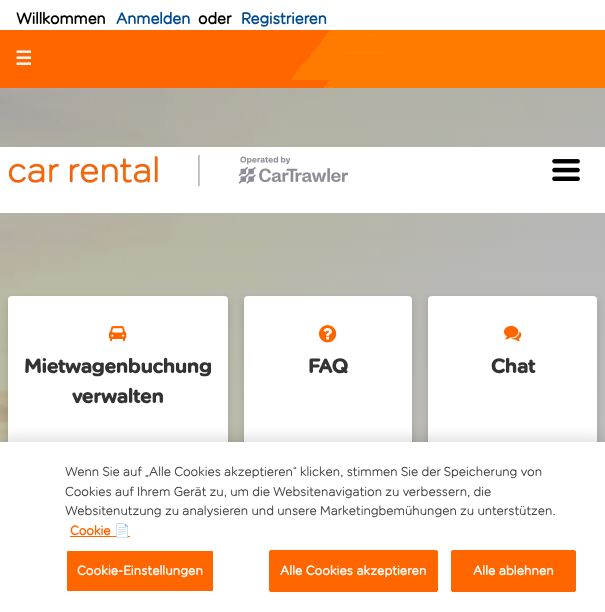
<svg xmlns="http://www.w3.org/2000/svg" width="605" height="612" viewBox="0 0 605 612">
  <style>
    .t1 { font: bold 16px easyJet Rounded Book; fill: #000; }
    .t2 { font: bold 16px easyJet Rounded Book; fill: #004b91; }
    .t3 { font: bold 19px DejaVu Sans; fill: #f2f2f2; }
    .t4 { font: bold 20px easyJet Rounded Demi; fill: #333; }
    .t5 { font: 13px easyJet Rounded Book; fill: #464646; }
    .t6 { font: bold 13px easyJet Rounded Book; fill: #f60; }
    .t7 { font: bold 13px Noto Color Emoji; fill: #f60; }
    .t8 { font: bold 13px easyJet Rounded Book; letter-spacing: 0.1px; fill: #fff; }
  </style>
  <rect width="100%" height="100%" fill="#fff"/>
  <text x="16" y="24" class="t1">Willkommen</text>
  <text x="116" y="24" class="t2">Anmelden</text>
  <text x="198" y="24" class="t1">oder</text>
  <text x="241" y="24" class="t2">Registrieren</text>
  <image x="0" y="30" width="605" height="58" href="images/1.png"/>
  <text x="15" y="65" class="t3">☰</text>
  <image x="0" y="88" width="605" height="354" href="images/4.png"/>
  <rect x="0" y="147" width="605" height="66" fill="#fff"/>
  <image x="9" y="155" width="339" height="31" href="images/2.png"/>
  <image x="552" y="159" width="28" height="22" href="images/3.png"/>
  <rect x="8" y="300" width="220" height="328" rx="4" fill="#00000026" filter="blur(4px)"/>
  <rect x="8" y="296" width="220" height="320" rx="4" fill="#fff"/>
  <image x="108" y="326" width="19" height="16" href="images/5.png"/>
  <text x="24" y="373" class="t4">Mietwagenbuchung</text>
  <text x="72" y="403" class="t4">verwalten</text>
  <rect x="244" y="300" width="168" height="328" rx="4" fill="#00000026" filter="blur(4px)"/>
  <rect x="244" y="296" width="168" height="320" rx="4" fill="#fff"/>
  <image x="319" y="325" width="18" height="18" href="images/6.png"/>
  <text x="308" y="373" class="t4">FAQ</text>
  <rect x="428" y="300" width="169" height="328" rx="4" fill="#00000026" filter="blur(4px)"/>
  <rect x="428" y="296" width="169" height="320" rx="4" fill="#fff"/>
  <image x="504" y="325" width="18" height="17" href="images/7.png"/>
  <text x="491" y="373" class="t4">Chat</text>
  <rect x="0" y="442" width="605" height="170" fill="#00000033" filter="blur(9px)"/>
  <rect x="0" y="442" width="605" height="170" fill="#fff"/>
  <text x="65" y="476" class="t5">Wenn Sie auf „Alle Cookies akzeptieren“ klicken, stimmen Sie der Speicherung von</text>
  <text x="65" y="496" class="t5">Cookies auf Ihrem Gerät zu, um die Websitenavigation zu verbessern, die</text>
  <text x="65" y="515" class="t5">Websitenutzung zu analysieren und unsere Marketingbemühungen zu unterstützen.</text>
  <text x="70" y="535" class="t6">Cookie</text>
  <rect x="70" y="536" width="60" height="1" fill="#f60"/>
  <text x="114" y="535" class="t7">📄</text>
  <rect x="66.5" y="550.5" width="147" height="41" rx="1.5" fill="#f60" stroke="#fff"/>
  <text x="77" y="575" class="t8">Cookie-Einstellungen</text>
  <rect x="269.5" y="550.5" width="168" height="41" rx="1.5" fill="#f60" stroke="#f60"/>
  <text x="280" y="575" class="t8">Alle Cookies akzeptieren</text>
  <rect x="451.5" y="550.5" width="124" height="41" rx="1.5" fill="#f60" stroke="#f60"/>
  <text x="473" y="575" class="t8">Alle ablehnen</text>
</svg>
